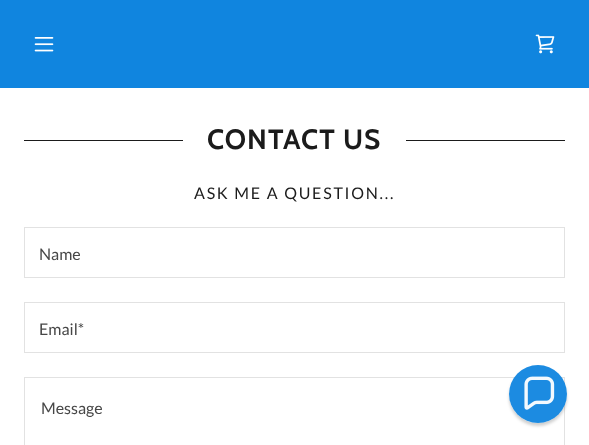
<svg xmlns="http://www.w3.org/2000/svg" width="589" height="445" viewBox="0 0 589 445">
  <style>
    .t1 { font: bold 28px Cabin; letter-spacing: 1px; fill: #1b1b1b; }
    .t2 { font: 16px Lato; letter-spacing: 1.75px; fill: #1b1b1b; }
    .t3 { font: 16px Lato; fill: #474747; }
  </style>
  <defs>
    <clipPath id="clip1"><path d="M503 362H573V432H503ZM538 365C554 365 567 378 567 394C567 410 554 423 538 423C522 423 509 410 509 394C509 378 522 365 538 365Z" clip-rule="evenodd"/></clipPath>
  </defs>
  <rect width="100%" height="100%" fill="#fff"/>
  <rect x="0" y="0" width="589" height="88" fill="#1085df"/>
  <image x="34" y="37" width="20" height="15" href="images/1.png"/>
  <image x="535" y="34" width="20" height="20" href="images/2.png"/>
  <rect x="24" y="140" width="159" height="1" fill="#1b1b1b"/>
  <text x="207" y="149" class="t1">CONTACT US</text>
  <rect x="406" y="140" width="159" height="1" fill="#1b1b1b"/>
  <text x="194" y="199" class="t2">ASK ME A QUESTION...</text>
  <rect x="24.5" y="227.5" width="540" height="50" fill="none" stroke="#e2e2e2"/>
  <text x="39" y="260" class="t3">Name</text>
  <rect x="24.5" y="302.5" width="540" height="50" fill="none" stroke="#e2e2e2"/>
  <text x="39" y="335" class="t3">Email*</text>
  <rect x="24.5" y="377.5" width="540" height="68" fill="none" stroke="#e2e2e2"/>
  <text x="41" y="414" class="t3">Message</text>
  <g clip-path="url(#clip1)">
    <rect x="509" y="368" width="58" height="58" rx="29" fill="#00000030" filter="blur(1.5px)"/>
  </g>
  <circle cx="538" cy="394" r="29" fill="#1085dff2"/>
  <image x="524" y="376" width="31" height="34" href="images/3.png"/>
</svg>
